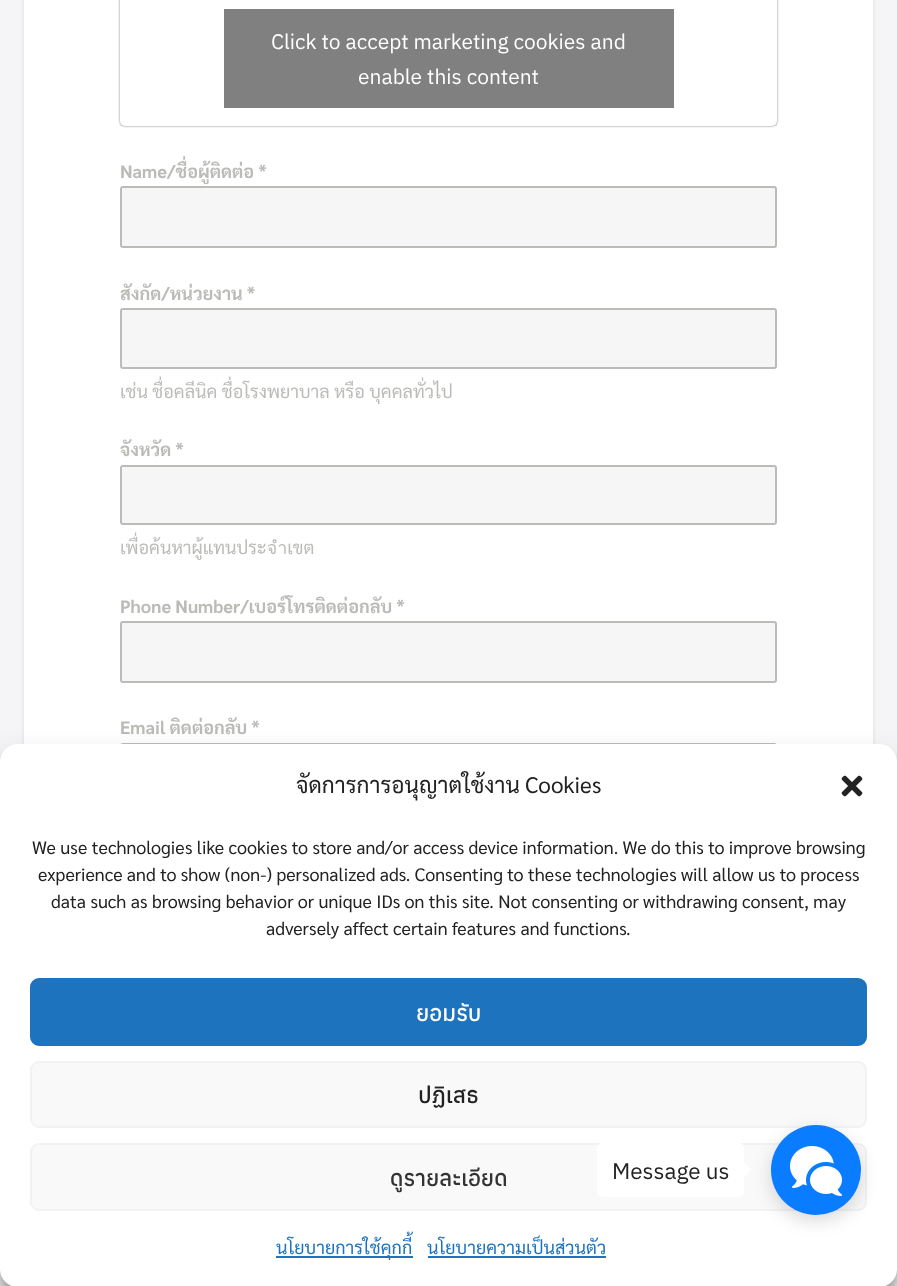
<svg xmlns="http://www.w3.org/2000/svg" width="897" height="1286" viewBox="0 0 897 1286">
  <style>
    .t1 { font: 21px Anuphan; fill: #fff; }
    .t2 { font: bold 18px Sarabun; fill: #bbbbb8; }
    .t3 { font: 18px Sarabun; fill: #bbbbb8; }
    .t4 { font: 22.5px Sarabun; fill: #222; }
    .t5 { font: 18px Sarabun; fill: #222; }
    .t6 { font: 500 22.5px Anuphan; fill: #fff; }
    .t7 { font: 500 22.5px Anuphan; fill: #222; }
    .t8 { font: 500 22.5px Anuphan; fill: #333; }
    .t9 { font: 18px Sarabun; fill: #1e73be; }
    .t10 { font: 22.5px Anuphan; fill: #222; }
  </style>
  <defs>
    <clipPath id="clip1"><rect x="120" y="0" width="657" height="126"/></clipPath>
  </defs>
  <rect width="100%" height="100%" fill="#f5f5f7"/>
  <rect x="24" y="-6" width="849" height="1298" fill="#0000001a" filter="blur(2px)"/>
  <rect x="24" y="0" width="849" height="744" fill="#fff"/>
  <g clip-path="url(#clip1)">
    <rect x="120" y="-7" width="657" height="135" rx="5" fill="#00000026" filter="blur(7.5px)"/>
  </g>
  <rect x="120" y="-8" width="657" height="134" rx="5" fill="#00000080" filter="blur(1px)"/>
  <rect x="120" y="-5" width="657" height="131" rx="5" fill="#fff"/>
  <rect x="224" y="9" width="450" height="99" fill="#808080"/>
  <text x="271" y="49" class="t1">Click to accept marketing cookies and</text>
  <text x="358" y="84" class="t1">enable this content</text>
  <text x="120" y="178" class="t2">Name/ชื่อผู้ติดต่อ *</text>
  <rect x="121" y="187" width="655" height="60" rx="2" fill="#f6f6f6" stroke="#bbbbb8" stroke-width="2"/>
  <text x="120" y="300" class="t2">สังกัด/หน่วยงาน *</text>
  <rect x="121" y="309" width="655" height="59" rx="2" fill="#f6f6f6" stroke="#bbbbb8" stroke-width="2"/>
  <text x="120" y="398" class="t3">เช่น ชื่อคลีนิค ชื่อโรงพยาบาล หรือ บุคคลทั่วไป</text>
  <text x="120" y="456" class="t2">จังหวัด *</text>
  <rect x="121" y="466" width="655" height="58" rx="2" fill="#f6f6f6" stroke="#bbbbb8" stroke-width="2"/>
  <text x="120" y="554" class="t3">เพื่อค้นหาผู้แทนประจำเขต</text>
  <text x="120" y="613" class="t2">Phone Number/เบอร์โทรติดต่อกลับ *</text>
  <rect x="121" y="622" width="655" height="60" rx="2" fill="#f6f6f6" stroke="#bbbbb8" stroke-width="2"/>
  <text x="120" y="734" class="t2">Email ติดต่อกลับ *</text>
  <rect x="121" y="744" width="655" height="59" rx="2" fill="none" stroke="#bbbbb8" stroke-width="2"/>
  <rect x="0" y="753" width="897" height="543" rx="18" fill="#0000003b" filter="blur(4.5px)"/>
  <rect x="0" y="759" width="897" height="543" rx="18" fill="#00000030" filter="blur(15px)"/>
  <rect x="0" y="744" width="897" height="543" rx="18" fill="#fff"/>
  <text x="296" y="793" class="t4">จัดการการอนุญาตใช้งาน Cookies</text>
  <image x="841" y="775" width="22" height="22" href="images/1.png"/>
  <text x="32" y="854" class="t5">We use technologies like cookies to store and/or access device information. We do this to improve browsing</text>
  <text x="38" y="881" class="t5">experience and to show (non-) personalized ads. Consenting to these technologies will allow us to process</text>
  <text x="51" y="908" class="t5">data such as browsing behavior or unique IDs on this site. Not consenting or withdrawing consent, may</text>
  <text x="266" y="935" class="t5">adversely affect certain features and functions.</text>
  <rect x="31" y="979" width="835" height="66" rx="8" fill="#1e73be" stroke="#1e73be" stroke-width="2"/>
  <text x="416" y="1021" class="t6">ยอมรับ</text>
  <rect x="31" y="1062" width="835" height="65" rx="8" fill="#f9f9f9" stroke="#f2f2f2" stroke-width="2"/>
  <text x="418" y="1103" class="t7">ปฏิเสธ</text>
  <rect x="31" y="1144" width="835" height="66" rx="8" fill="#f9f9f9" stroke="#f2f2f2" stroke-width="2"/>
  <text x="390" y="1186" class="t8">ดูรายละเอียด</text>
  <rect x="276" y="1256" width="137" height="2" fill="#1e73be"/>
  <text x="276" y="1254" class="t9">นโยบายการใช้คุกกี้</text>
  <text x="427" y="1254" class="t9">นโยบายความเป็นส่วนตัว</text>
  <rect x="428" y="1256" width="178" height="2" fill="#1e73be"/>
  <rect x="771" y="1131" width="90" height="90" rx="45" fill="#00000026" filter="blur(9px)"/>
  <circle cx="816" cy="1170" r="45" fill="#0a7cff"/>
  <rect x="597" y="1143" width="147" height="54" rx="5" fill="#fff"/>
  <text x="612" y="1179" class="t10">Message us</text>
  <path d="M744 1177V1162L751.5 1169.5Z" fill="#fff"/>
  <image x="790" y="1146" width="52" height="50" href="images/2.png"/>
</svg>
